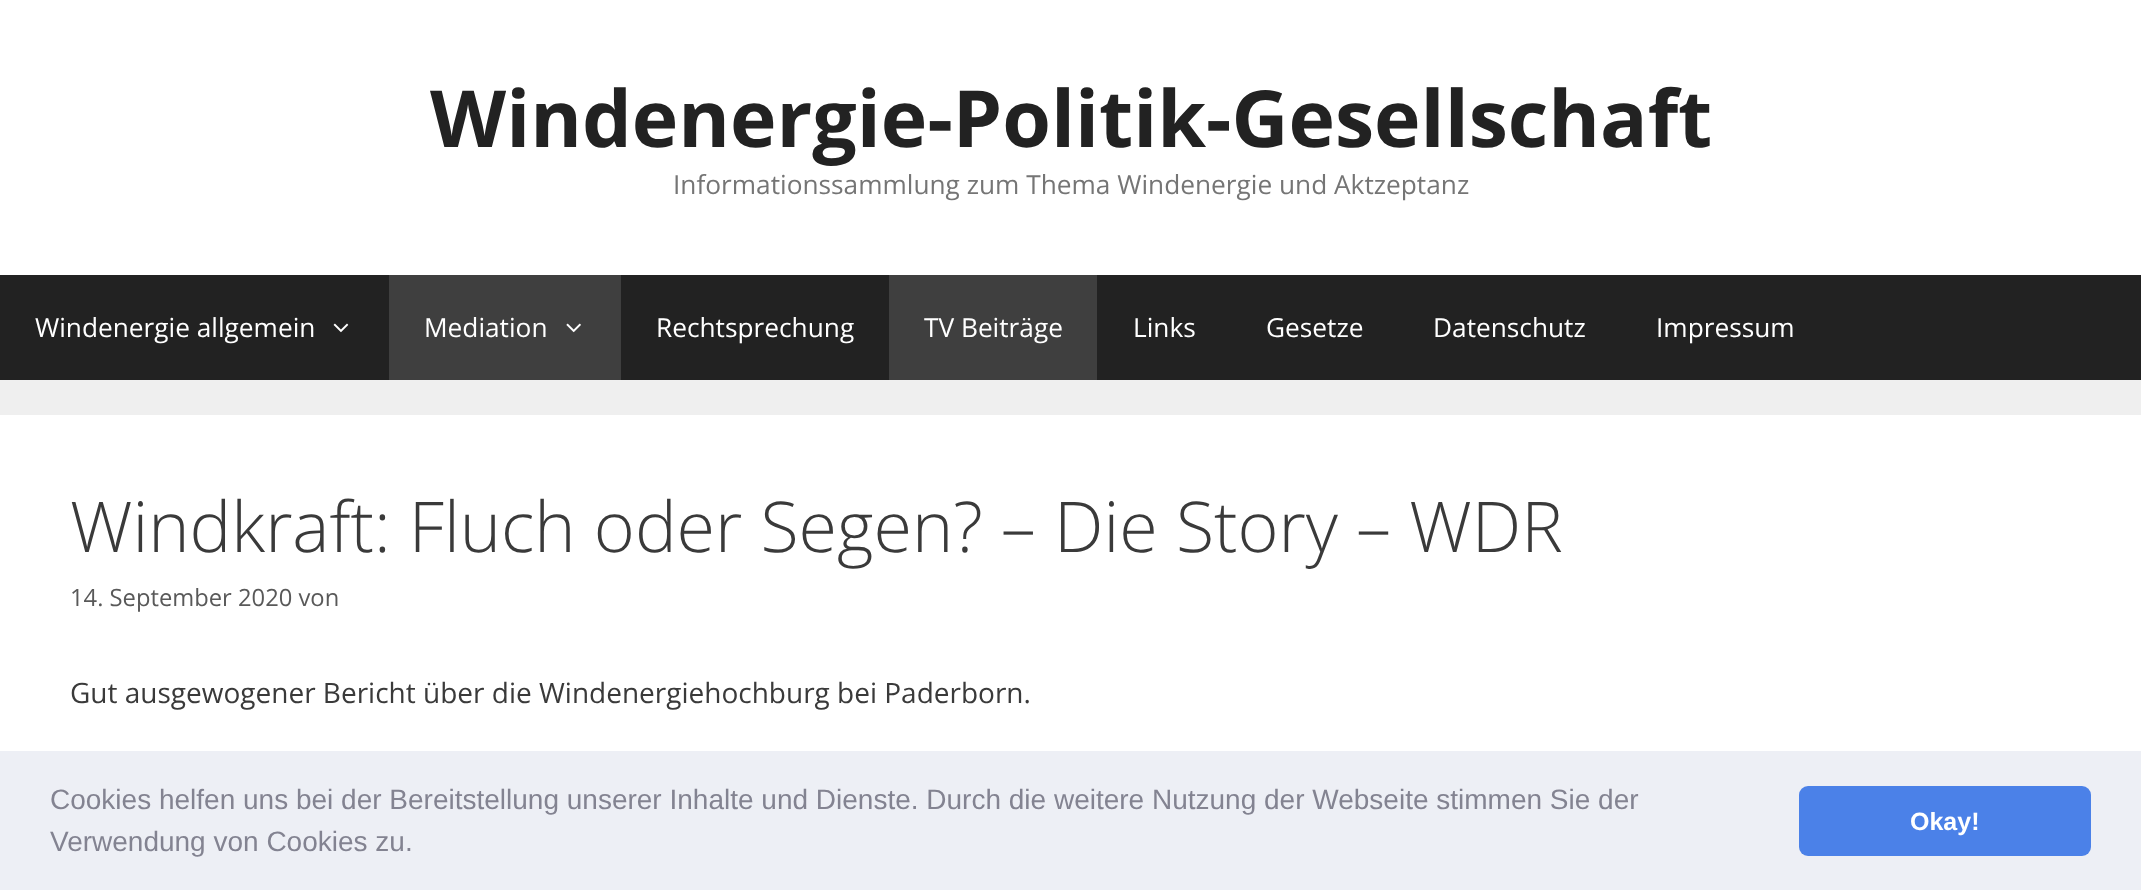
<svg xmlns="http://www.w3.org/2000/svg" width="2141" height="890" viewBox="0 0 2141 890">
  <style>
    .t1 { font: bold 78.75px Open Sans; fill: #222; }
    .t2 { font: 26.25px Open Sans; fill: #757575; }
    .t3 { font: 26.25px Open Sans; fill: #fff; }
    .t4 { font: 300 70px Open Sans; fill: #3a3a3a; }
    .t5 { font: 23.75px Open Sans; fill: #595959; }
    .t6 { font: 28px Open Sans; fill: #3a3a3a; }
    .t7 { font: 28px Liberation Sans; fill: #838391; }
    .t8 { font: bold 25px Liberation Sans; fill: #fff; }
  </style>
  <rect width="100%" height="100%" fill="#efefef"/>
  <rect x="0" y="0" width="2141" height="275" fill="#fff"/>
  <text x="430" y="147" class="t1">Windenergie-Politik-Gesellschaft</text>
  <text x="673" y="194" class="t2">Informationssammlung zum Thema Windenergie und Aktzeptanz</text>
  <rect x="0" y="275" width="2141" height="105" fill="#222"/>
  <text x="35" y="337" class="t3">Windenergie allgemein</text>
  <image x="333" y="323" width="16" height="10" href="images/1.png"/>
  <rect x="389" y="275" width="232" height="105" fill="#3f3f3f"/>
  <text x="424" y="337" class="t3">Mediation</text>
  <image x="566" y="323" width="15" height="10" href="images/2.png"/>
  <text x="656" y="337" class="t3">Rechtsprechung</text>
  <rect x="889" y="275" width="208" height="105" fill="#3f3f3f"/>
  <text x="924" y="337" class="t3">TV Beiträge</text>
  <text x="1133" y="337" class="t3">Links</text>
  <text x="1266" y="337" class="t3">Gesetze</text>
  <text x="1433" y="337" class="t3">Datenschutz</text>
  <text x="1656" y="337" class="t3">Impressum</text>
  <rect x="0" y="415" width="2141" height="336" fill="#fff"/>
  <text x="70" y="552" class="t4">Windkraft: Fluch oder Segen? – Die Story – WDR</text>
  <text x="70" y="606" class="t5">14. September 2020 von</text>
  <text x="70" y="703" class="t6">Gut ausgewogener Bericht über die Windenergiehochburg bei Paderborn.</text>
  <rect x="0" y="751" width="2141" height="139" fill="#edeff5"/>
  <text x="50" y="809" class="t7">Cookies helfen uns bei der Bereitstellung unserer Inhalte und Dienste. Durch die weitere Nutzung der Webseite stimmen Sie der</text>
  <text x="50" y="851" class="t7">Verwendung von Cookies zu.</text>
  <rect x="1799" y="786" width="292" height="70" rx="9" fill="#4b81e8"/>
  <text x="1910" y="830" class="t8">Okay!</text>
</svg>
